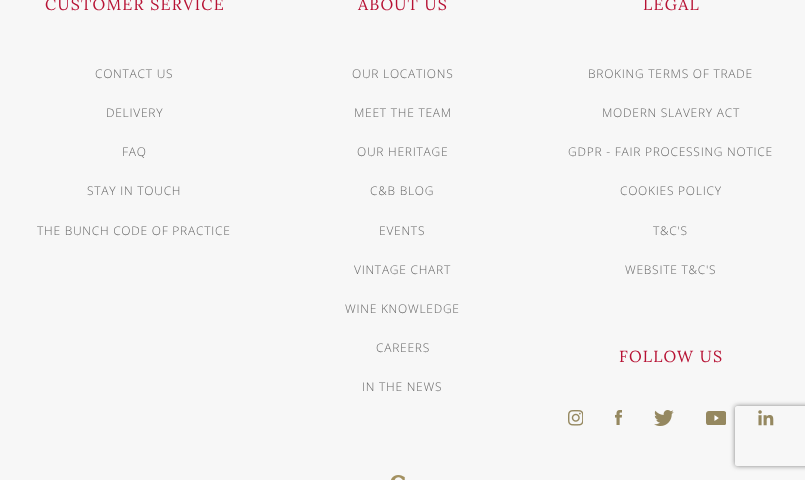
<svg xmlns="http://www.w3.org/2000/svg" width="805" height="480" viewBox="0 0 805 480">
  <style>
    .t1 { font: 16px Lora; letter-spacing: 1.25px; fill: #b71234; }
    .t2 { font: 300 12px Open Sans; letter-spacing: 0.75px; fill: #666; }
  </style>
  <defs>
    <clipPath id="clip1"><path d="M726 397H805V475H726ZM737 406H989C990 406 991 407 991 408V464C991 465 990 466 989 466H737C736 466 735 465 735 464V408C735 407 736 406 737 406Z" clip-rule="evenodd"/></clipPath>
  </defs>
  <rect width="100%" height="100%" fill="#f7f7f7"/>
  <text x="45" y="10" class="t1">CUSTOMER SERVICE</text>
  <text x="95" y="78" class="t2">CONTACT US</text>
  <text x="106" y="117" class="t2">DELIVERY</text>
  <text x="122" y="156" class="t2">FAQ</text>
  <text x="87" y="195" class="t2">STAY IN TOUCH</text>
  <text x="37" y="235" class="t2">THE BUNCH CODE OF PRACTICE</text>
  <text x="358" y="10" class="t1">ABOUT US</text>
  <text x="352" y="78" class="t2">OUR LOCATIONS</text>
  <text x="354" y="117" class="t2">MEET THE TEAM</text>
  <text x="357" y="156" class="t2">OUR HERITAGE</text>
  <text x="370" y="195" class="t2">C&amp;B BLOG</text>
  <text x="379" y="235" class="t2">EVENTS</text>
  <text x="354" y="274" class="t2">VINTAGE CHART</text>
  <text x="345" y="313" class="t2">WINE KNOWLEDGE</text>
  <text x="376" y="352" class="t2">CAREERS</text>
  <text x="362" y="391" class="t2">IN THE NEWS</text>
  <text x="643" y="10" class="t1">LEGAL</text>
  <text x="588" y="78" class="t2">BROKING TERMS OF TRADE</text>
  <text x="602" y="117" class="t2">MODERN SLAVERY ACT</text>
  <text x="568" y="156" class="t2">GDPR - FAIR PROCESSING NOTICE</text>
  <text x="620" y="195" class="t2">COOKIES POLICY</text>
  <text x="653" y="235" class="t2">T&amp;C'S</text>
  <text x="625" y="274" class="t2">WEBSITE T&amp;C'S</text>
  <text x="619" y="362" class="t1">FOLLOW US</text>
  <image x="568" y="410" width="15" height="16" href="images/1.png"/>
  <image x="615" y="410" width="7" height="15" href="images/2.png"/>
  <image x="654" y="410" width="20" height="16" href="images/3.png"/>
  <image x="706" y="411" width="20" height="14" href="images/4.png"/>
  <image x="758" y="410" width="16" height="16" href="images/5.png"/>
  <image x="391" y="475" width="14" height="5" href="images/6.png"/>
  <g clip-path="url(#clip1)">
    <rect x="735" y="406" width="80" height="60" rx="2" fill="#808080" filter="blur(2.5px)"/>
  </g>
</svg>
